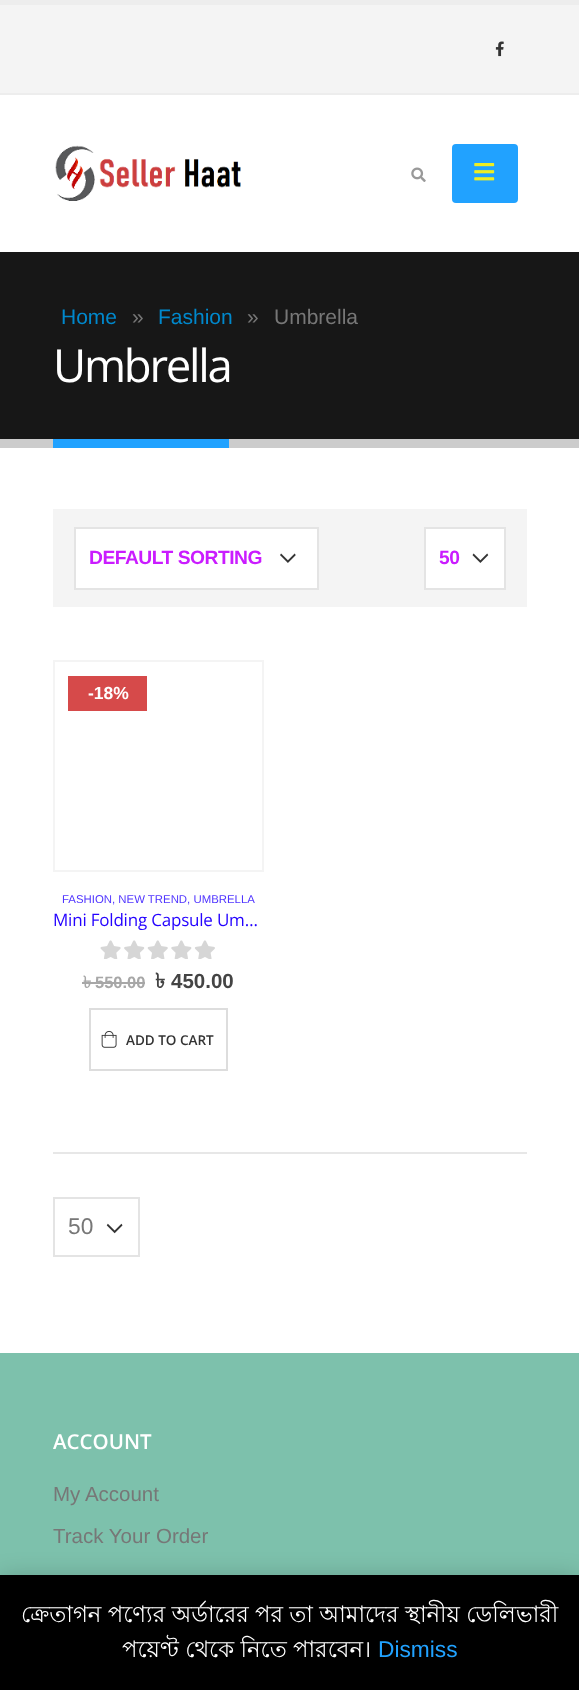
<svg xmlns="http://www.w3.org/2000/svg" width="579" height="1690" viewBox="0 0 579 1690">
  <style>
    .t1 { font: 21px Liberation Sans; fill: #08c; }
    .t2 { font: 21px Liberation Sans; fill: #777; }
    .t3 { font: 45.5px Open Sans; letter-spacing: -2.25px; fill: #fff; }
    .t4 { font: bold 19.25px Liberation Sans; letter-spacing: -0.5px; fill: #ca1cff; }
    .t5 { font: bold 17.5px Liberation Sans; fill: #fff; }
    .t6 { font: 11.4px Liberation Sans; fill: #5035ff; }
    .t7 { font: 17px Open Sans; letter-spacing: -0.2px; fill: #2402ff; }
    .t8 { font: bold 16.5px Lohit Bengali; fill: #a7a7a7; }
    .t9 { font: bold 16.5px Liberation Sans; fill: #a7a7a7; }
    .t10 { font: bold 20.5px Lohit Bengali; fill: #444; }
    .t11 { font: bold 20.5px Liberation Sans; fill: #444; }
    .t12 { font: 600 13.5px Open Sans; fill: #333; }
    .t13 { font: 22.75px Liberation Sans; fill: #777; }
    .t14 { font: 600 20.5px Open Sans; fill: #fff; }
    .t15 { font: 20.5px Liberation Sans; fill: #777; }
    .t16 { font: 22.75px Lohit Bengali; fill: #fff; }
    .t17 { font: 22.75px Liberation Sans; fill: #21a2ff; }
  </style>
  <rect width="100%" height="100%" fill="#ededed"/>
  <rect x="0" y="5" width="579" height="88" fill="#f4f4f4"/>
  <image x="495" y="41" width="9" height="16" href="images/1.png"/>
  <rect x="0" y="95" width="579" height="157" fill="#fff"/>
  <image x="55" y="145" width="186" height="56" href="images/2.png"/>
  <image x="411" y="167" width="15" height="15" href="images/3.png"/>
  <rect x="452" y="144" width="66" height="59" rx="4" fill="#21a2ff"/>
  <image x="474" y="163" width="21" height="18" href="images/4.png"/>
  <rect x="0" y="252" width="579" height="187" fill="#171717"/>
  <rect x="0" y="439" width="579" height="9" fill="#ccc"/>
  <text x="61" y="324" class="t1">Home</text>
  <text x="132" y="324" class="t2">»</text>
  <text x="158" y="324" class="t1">Fashion</text>
  <text x="247" y="324" class="t2">»</text>
  <text x="274" y="324" class="t2">Umbrella</text>
  <text x="53" y="382" class="t3">Umbrella</text>
  <rect x="53" y="439" width="176" height="9" fill="#21a2ff"/>
  <rect x="0" y="448" width="579" height="905" fill="#fff"/>
  <rect x="53" y="509" width="474" height="98" fill="#f4f4f4"/>
  <rect x="76" y="529" width="241" height="59" fill="#fff"/>
  <image x="280" y="553" width="16" height="10" href="images/5.png"/>
  <rect x="75" y="528" width="243" height="61" fill="none" stroke="#e4e4e4" stroke-width="2"/>
  <text x="89" y="564" class="t4">DEFAULT SORTING</text>
  <rect x="426" y="529" width="78" height="59" fill="#fff"/>
  <image x="472" y="553" width="17" height="10" href="images/6.png"/>
  <rect x="425" y="528" width="80" height="61" fill="none" stroke="#e4e4e4" stroke-width="2"/>
  <text x="439" y="564" class="t4">50</text>
  <rect x="54" y="661" width="209" height="210" fill="none" stroke="#f4f4f4" stroke-width="2"/>
  <rect x="68" y="676" width="79" height="35" fill="#d64a4a"/>
  <text x="88" y="699" class="t5">-18%</text>
  <text x="62" y="903" class="t6">FASHION, NEW TREND, UMBRELLA</text>
  <text x="53" y="926" class="t7">Mini Folding Capsule Um…</text>
  <image x="100" y="940" width="115" height="19" href="images/7.png"/>
  <text x="83" y="988" class="t8">৳</text>
  <rect x="82" y="982" width="14" height="2" fill="#a7a7a7"/>
  <text x="95" y="988" class="t9">550.00</text>
  <rect x="96" y="982" width="49" height="2" fill="#a7a7a7"/>
  <text x="155" y="988" class="t10">৳</text>
  <text x="171" y="988" class="t11">450.00</text>
  <rect x="90" y="1009" width="137" height="61" fill="none" stroke="#ddd" stroke-width="2"/>
  <image x="101" y="1030" width="16" height="18" href="images/8.png"/>
  <text x="126" y="1045" class="t12">ADD TO CART</text>
  <rect x="53" y="1152" width="474" height="2" fill="#e7e7e7"/>
  <image x="106" y="1223" width="17" height="11" href="images/9.png"/>
  <rect x="54" y="1198" width="85" height="58" fill="none" stroke="#e4e4e4" stroke-width="2"/>
  <text x="68" y="1234" class="t13">50</text>
  <rect x="0" y="1353" width="579" height="222" fill="#7dc1ac"/>
  <text x="53" y="1449" class="t14">ACCOUNT</text>
  <text x="53" y="1501" class="t15">My Account</text>
  <text x="53" y="1543" class="t15">Track Your Order</text>
  <rect x="0" y="1577" width="579" height="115" fill="#00000033" filter="blur(11.5px)"/>
  <rect x="0" y="1575" width="579" height="115" fill="#000"/>
  <text x="21" y="1622" class="t16">ক্রেতাগন পণ্যের অর্ডারের পর তা আমাদের স্থানীয় ডেলিভারী</text>
  <text x="122" y="1657" class="t16">পয়েণ্ট থেকে নিতে পারবেন।</text>
  <text x="378" y="1657" class="t17">Dismiss</text>
</svg>
